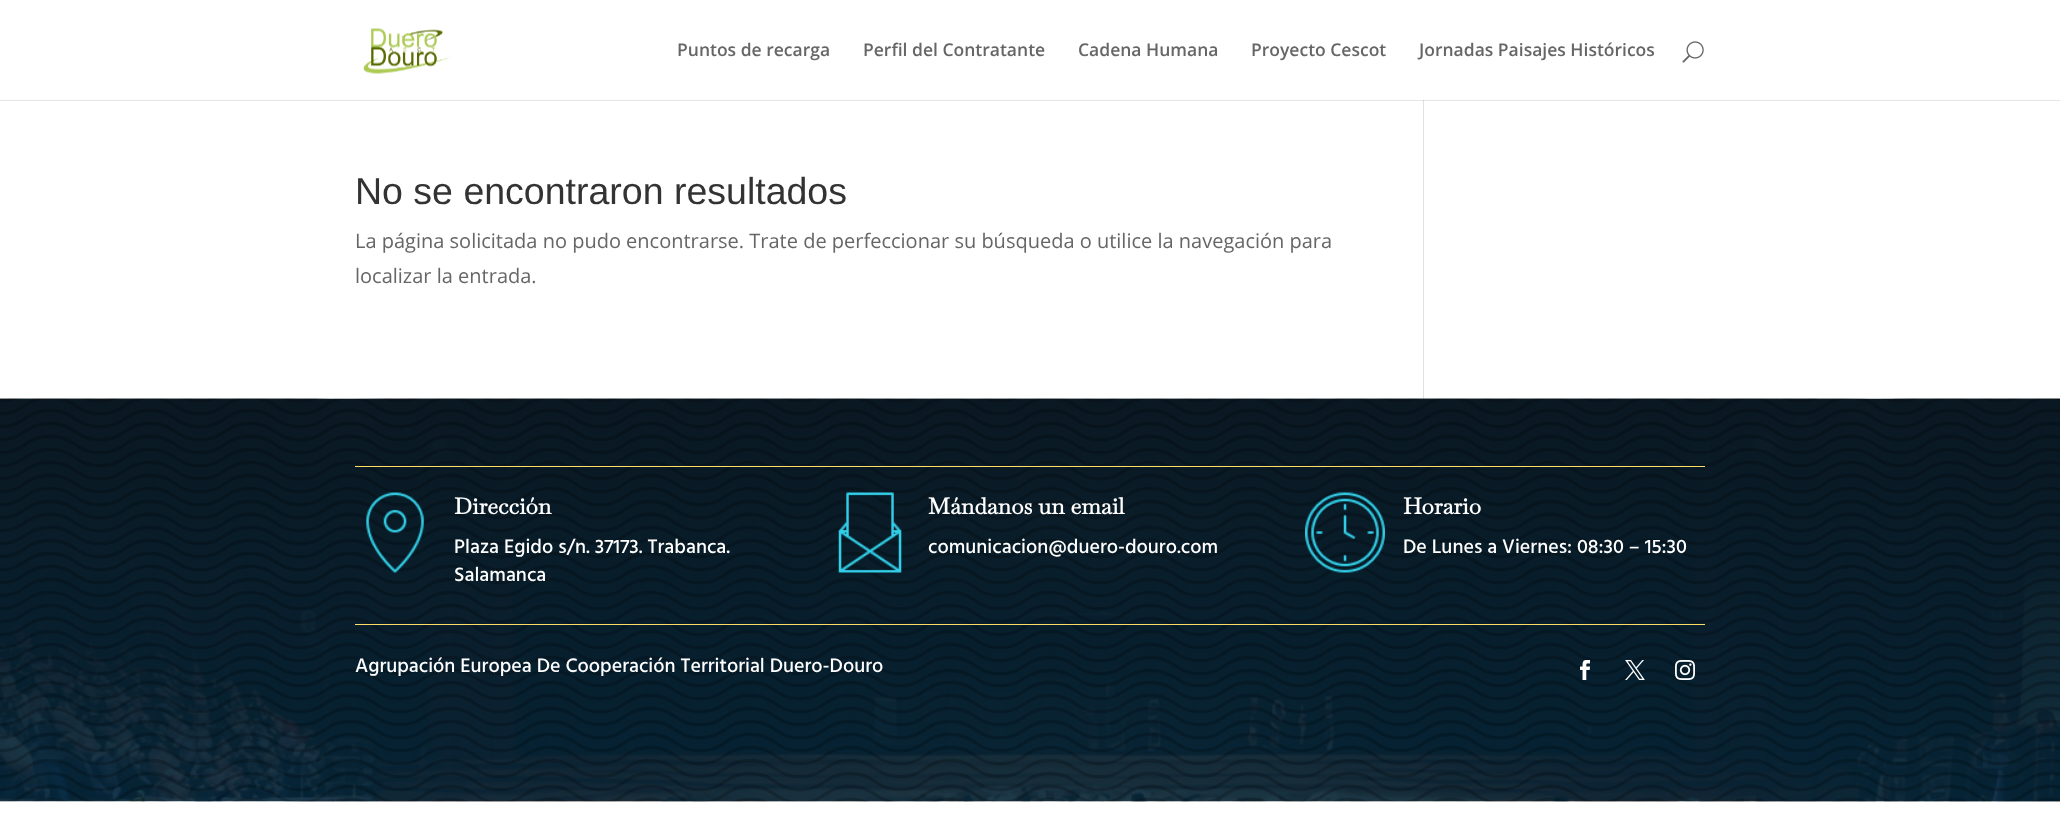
<svg xmlns="http://www.w3.org/2000/svg" width="2060" height="828" viewBox="0 0 2060 828">
  <style>
    .t1 { font: 600 17.5px Open Sans; fill: #666; }
    .t2 { font: 37.5px Liberation Sans; fill: #333; }
    .t3 { font: 20px Open Sans; fill: #666; }
    .t4 { font: bold 22.5px Baskervville; fill: #fff; }
    .t5 { font: 500 20px Hind; fill: #fff; }
  </style>
  <rect width="100%" height="100%" fill="#fff"/>
  <rect x="0" y="100" width="2060" height="1" fill="#e6e6e6"/>
  <image x="363" y="28" width="88" height="46" href="images/1.png"/>
  <text x="677" y="56" class="t1">Puntos de recarga</text>
  <text x="863" y="56" class="t1">Perfil del Contratante</text>
  <text x="1078" y="56" class="t1">Cadena Humana</text>
  <text x="1251" y="56" class="t1">Proyecto Cescot</text>
  <text x="1419" y="56" class="t1">Jornadas Paisajes Históricos</text>
  <image x="1682" y="41" width="22" height="22" href="images/2.png"/>
  <text x="355" y="204" class="t2">No se encontraron resultados</text>
  <text x="355" y="248" class="t3">La página solicitada no pudo encontrarse. Trate de perfeccionar su búsqueda o utilice la navegación para</text>
  <text x="355" y="283" class="t3">localizar la entrada.</text>
  <rect x="1423" y="100" width="1" height="299" fill="#e2e2e2"/>
  <rect x="1423" y="100" width="1" height="1" fill="#cbcbcb"/>
  <image x="0" y="398" width="2060" height="404" href="images/3.png"/>
  <image x="0" y="398" width="2060" height="404" href="images/4.png"/>
  <rect x="355" y="466" width="1350" height="1" fill="#ffdd67"/>
  <image x="366" y="492" width="58" height="81" href="images/5.png"/>
  <text x="454" y="514" class="t4">Dirección</text>
  <text x="454" y="553" class="t5">Plaza Egido s/n. 37173. Trabanca.</text>
  <text x="454" y="581" class="t5">Salamanca</text>
  <image x="838" y="492" width="64" height="81" href="images/6.png"/>
  <text x="928" y="514" class="t4">Mándanos un email</text>
  <text x="928" y="553" class="t5">comunicacion@duero-douro.com</text>
  <image x="1305" y="492" width="80" height="81" href="images/7.png"/>
  <text x="1403" y="514" class="t4">Horario</text>
  <text x="1403" y="553" class="t5">De Lunes a Viernes: 08:30 – 15:30</text>
  <rect x="355" y="624" width="1350" height="1" fill="#ffdd67"/>
  <text x="355" y="672" class="t5">Agrupación Europea De Cooperación Territorial Duero-Douro</text>
  <image x="1580" y="660" width="10" height="20" href="images/8.png"/>
  <image x="1625" y="660" width="20" height="20" href="images/9.png"/>
  <image x="1675" y="660" width="20" height="20" href="images/10.png"/>
</svg>
